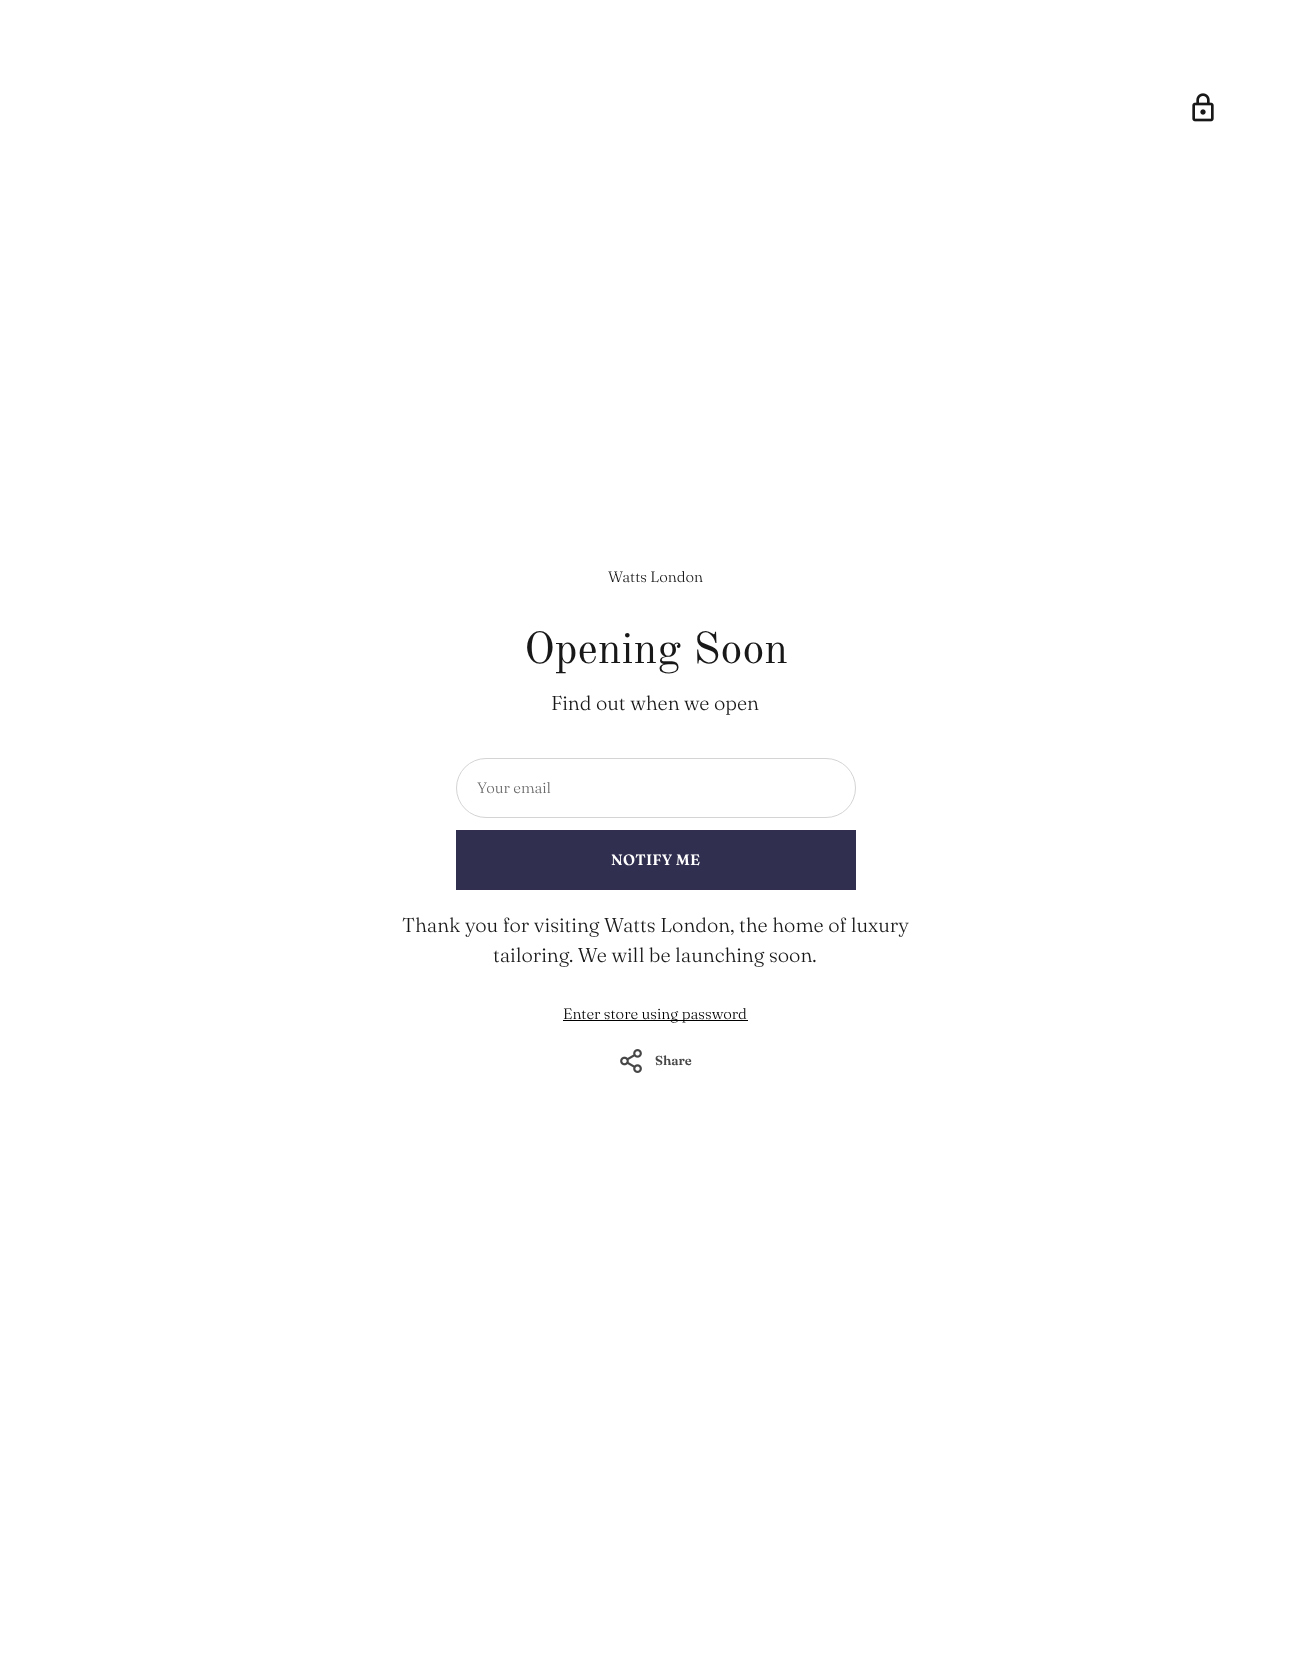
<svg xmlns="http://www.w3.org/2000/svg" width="1311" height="1654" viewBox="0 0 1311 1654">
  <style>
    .t1 { font: 300 15px Fraunces; fill: #181818; }
    .t2 { font: 44px Old Standard TT; fill: #181818; }
    .t3 { font: 300 20px 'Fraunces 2'; fill: #181818; }
    .t4 { font: 300 15px Fraunces; fill: #696969; }
    .t5 { font: 600 15px Fraunces; letter-spacing: 0.25px; fill: #fff; }
    .t6 { font: 300 15px Fraunces; fill: #000; }
    .t7 { font: 600 13px Fraunces; fill: #464646; }
  </style>
  <rect width="100%" height="100%" fill="#fff"/>
  <image x="1192" y="93" width="22" height="29" href="images/1.png"/>
  <text x="608" y="582" class="t1">Watts London</text>
  <text x="524" y="663" class="t2">Opening Soon</text>
  <text x="551" y="710" class="t3">Find out when we open</text>
  <rect x="456.5" y="758.5" width="399" height="59" rx="29.5" fill="none" stroke="#d4d4d4"/>
  <text x="477" y="793" class="t4">Your email</text>
  <rect x="456" y="830" width="400" height="60" fill="#302f4f"/>
  <text x="611" y="865" class="t5">NOTIFY ME</text>
  <text x="402" y="932" class="t3">Thank you for visiting Watts London, the home of luxury</text>
  <text x="493" y="962" class="t3">tailoring. We will be launching soon.</text>
  <rect x="563" y="1020" width="185" height="1" fill="#000"/>
  <text x="563" y="1019" class="t6">Enter store using password</text>
  <image x="620" y="1049" width="22" height="24" href="images/2.png"/>
  <text x="655" y="1065" class="t7">Share</text>
</svg>
